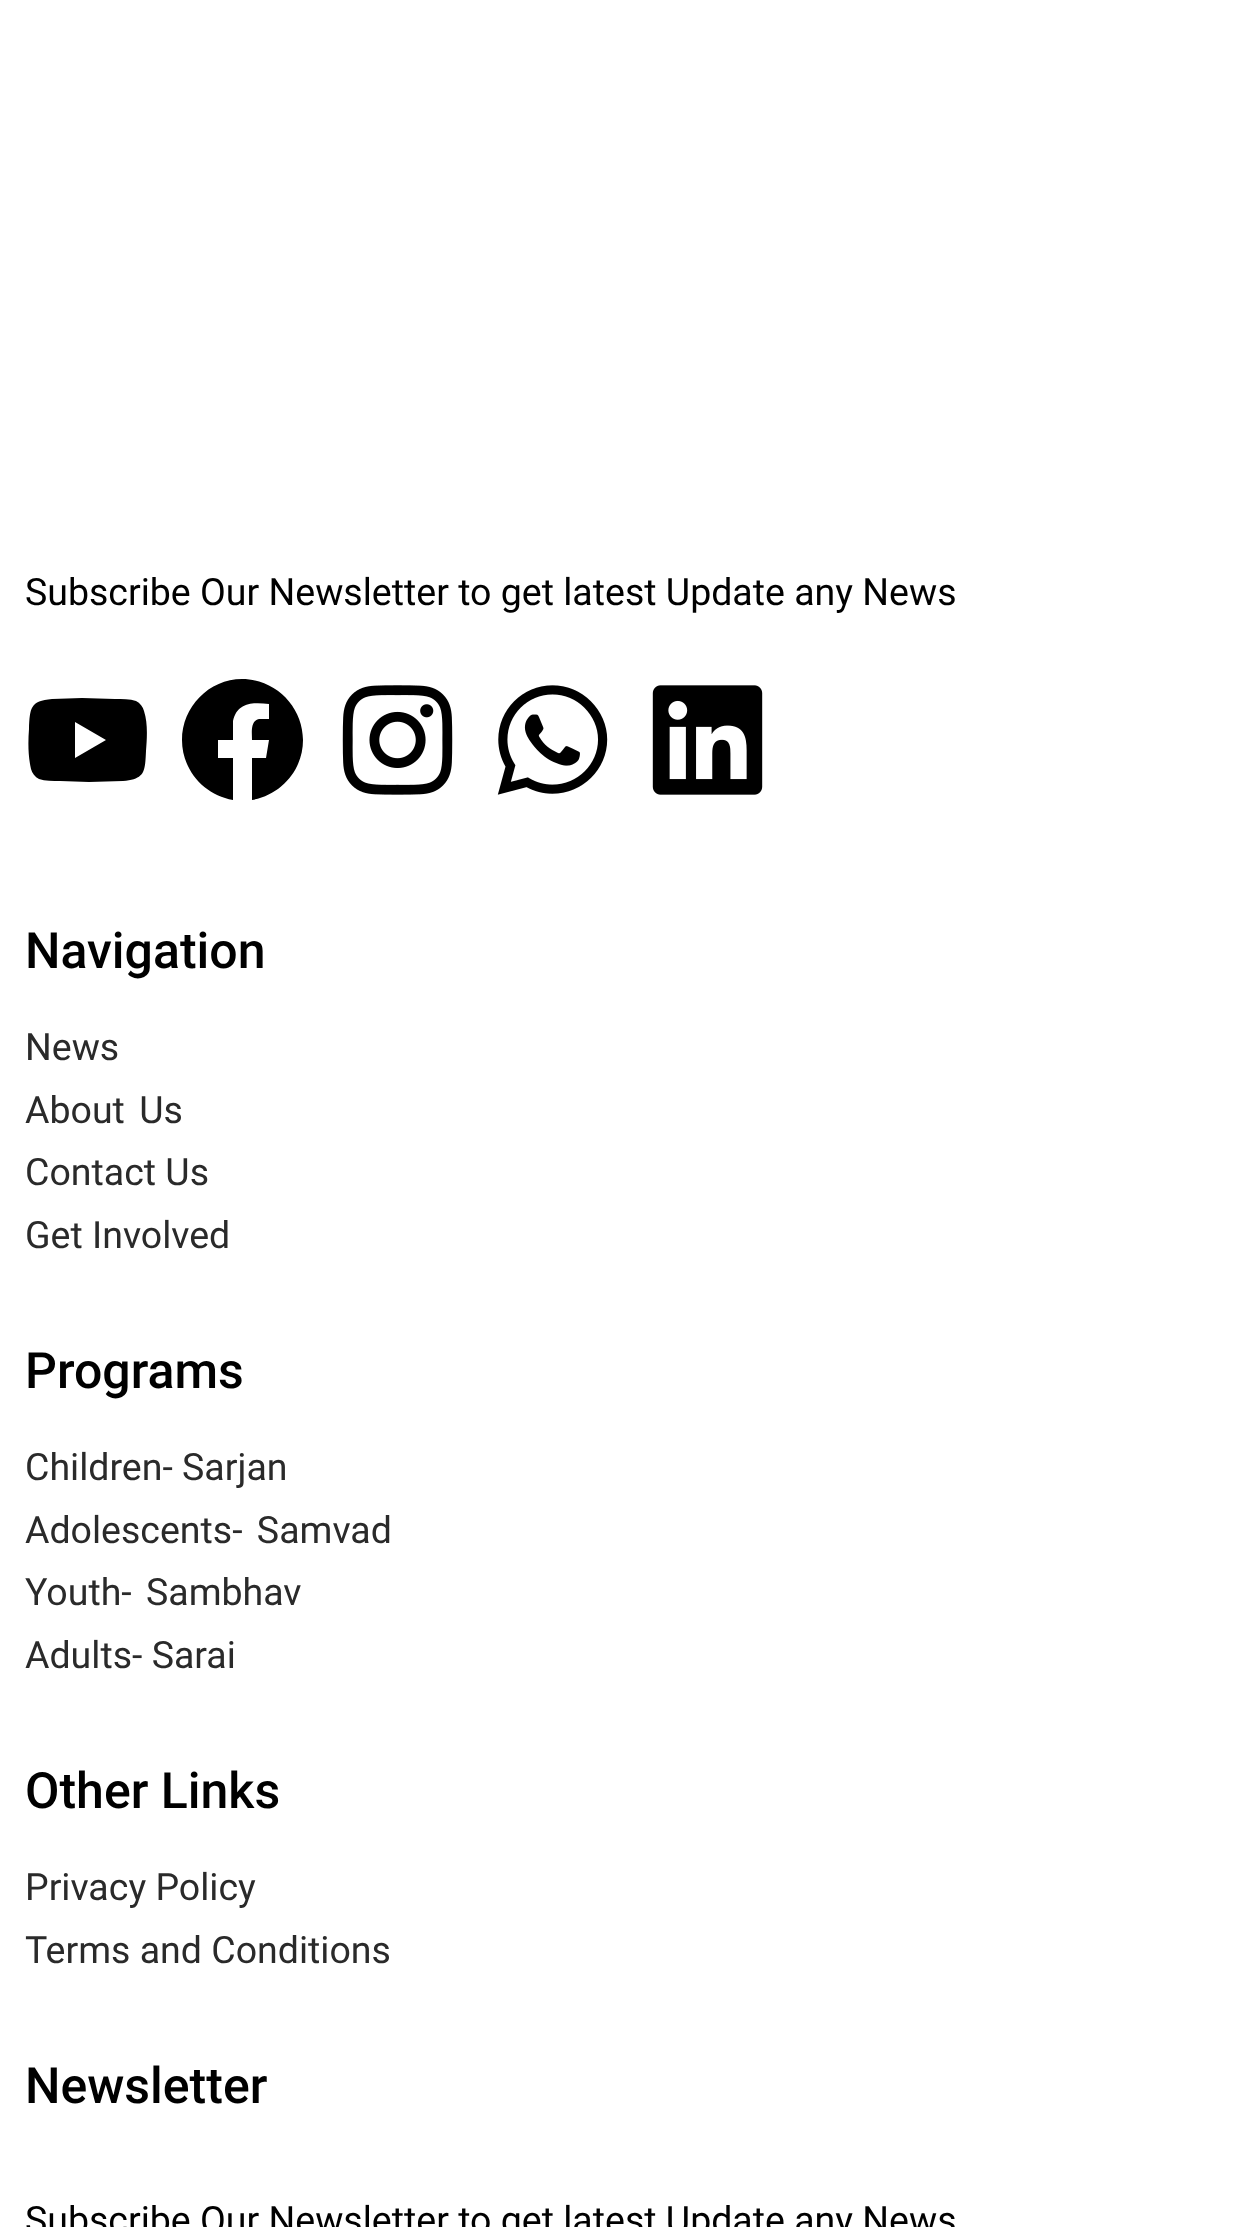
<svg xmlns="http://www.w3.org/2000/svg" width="1242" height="2227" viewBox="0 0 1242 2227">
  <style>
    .t1 { font: 37.5px Roboto; fill: #000; }
    .t2 { font: 500 50px Roboto; fill: #000; }
    .t3 { font: 37.5px Roboto; fill: #2a2a2a; }
  </style>
  <rect width="100%" height="100%" fill="#fff"/>
  <text x="25" y="605" class="t1">Subscribe Our Newsletter to get latest Update any News</text>
  <path d="M144 711C143 707 140 703 136 701C130 699 122 699 115 699L82 698L52 699C30 701 30 708 29 729C28 742 28 756 31 769C32 773 35 777 39 779C45 781 53 781 60 781L89 782L123 781C145 779 145 772 146 751C147 738 148 723 144 711ZM75 758V722L106 740Z" fill="#000"/>
  <path d="M303 740C303 707 276 679 242 679C209 679 182 707 182 740C182 770 204 795 233 800V758H218V740H233V721C237 702 254 702 269 704V719H259C250 721 252 733 252 740H269L266 758H252V800C281 795 303 770 303 740Z" fill="#000"/>
  <image x="342" y="685" width="111" height="110" href="images/1.png"/>
  <image x="497" y="685" width="111" height="110" href="images/2.png"/>
  <image x="652" y="685" width="111" height="110" href="images/3.png"/>
  <text x="25" y="968" class="t2">Navigation</text>
  <text x="25" y="1060" class="t3">News</text>
  <text x="25" y="1123" word-spacing="5" class="t3">About Us</text>
  <text x="25" y="1185" class="t3">Contact Us</text>
  <text x="25" y="1248" class="t3">Get Involved</text>
  <text x="25" y="1388" class="t2">Programs</text>
  <text x="25" y="1480" class="t3">Children- Sarjan</text>
  <text x="25" y="1543" word-spacing="5" class="t3">Adolescents- Samvad</text>
  <text x="25" y="1605" word-spacing="5" class="t3">Youth- Sambhav</text>
  <text x="25" y="1668" class="t3">Adults- Sarai</text>
  <text x="25" y="1808" class="t2">Other Links</text>
  <text x="25" y="1900" class="t3">Privacy Policy</text>
  <text x="25" y="1963" class="t3">Terms and Conditions</text>
  <text x="25" y="2103" class="t2">Newsletter</text>
  <text x="25" y="2233" class="t1">Subscribe Our Newsletter to get latest Update any News</text>
</svg>
